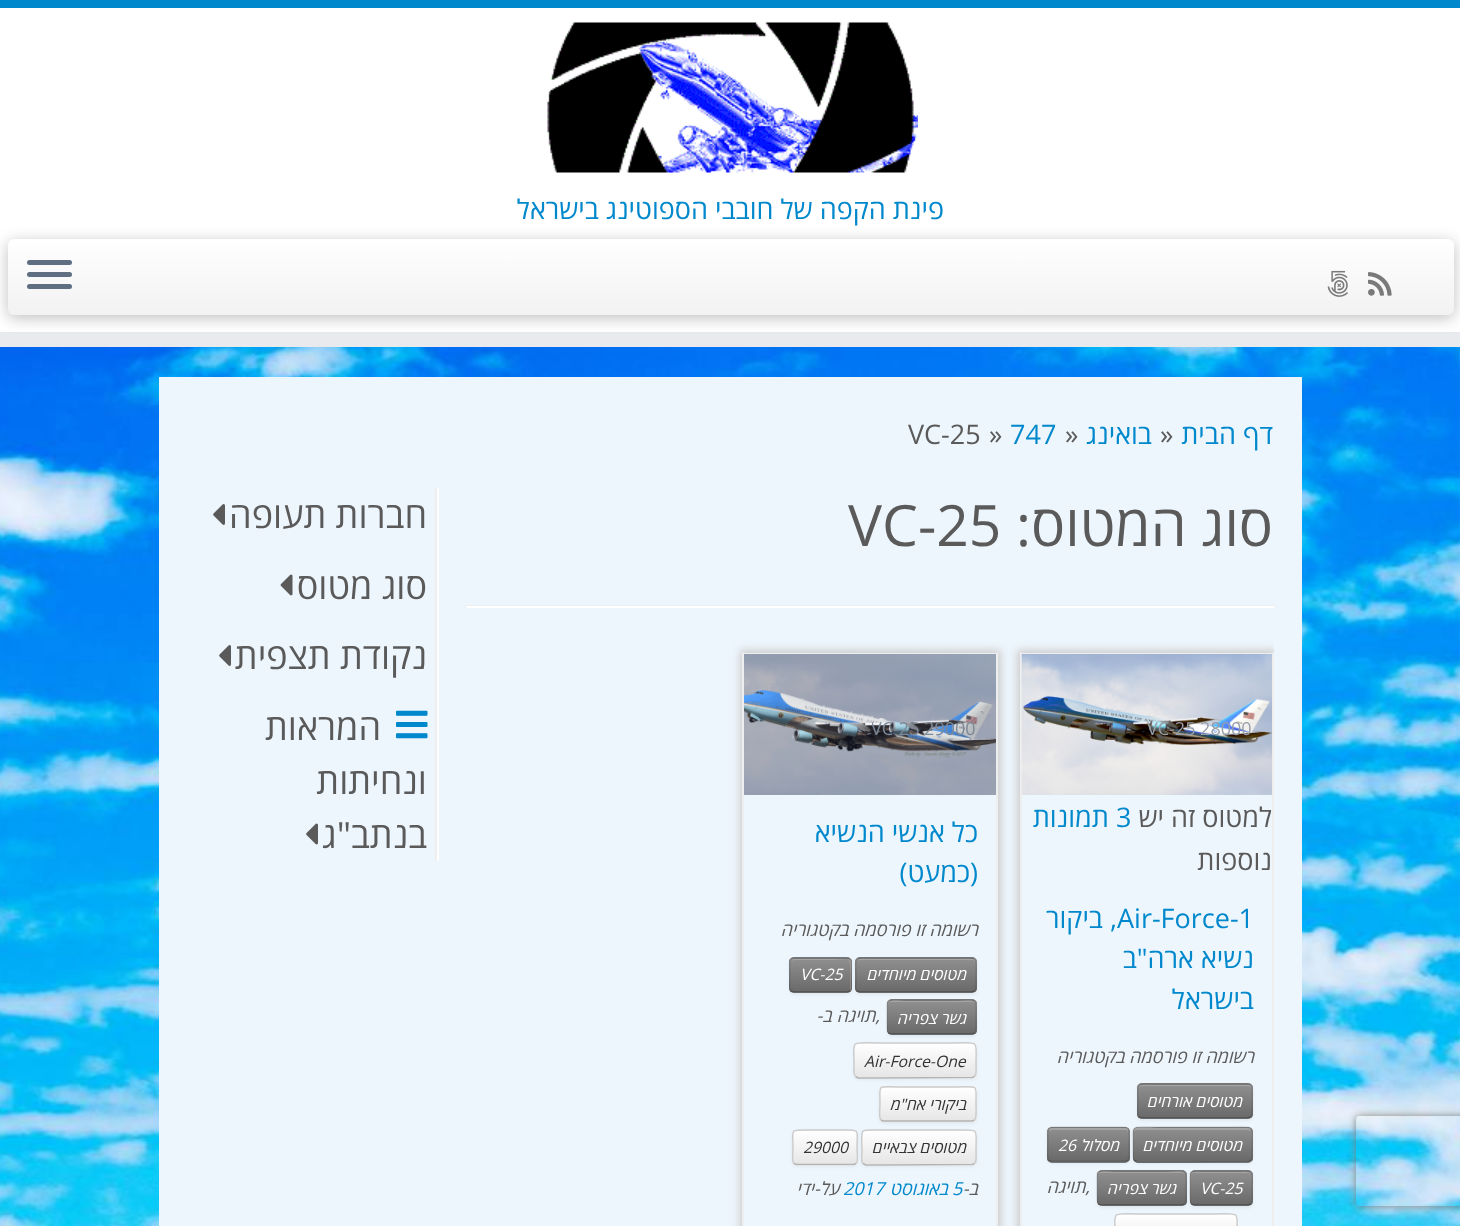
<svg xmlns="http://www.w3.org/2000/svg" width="1460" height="1226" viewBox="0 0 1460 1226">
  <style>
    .t1 { font: 27px Open Sans; direction: rtl; fill: #08c; }
    .t2 { font: 27px Open Sans; fill: #5a5a5a; }
    .t3 { font: 27px Open Sans; fill: #08c; }
    .t4 { font: 57px Open Sans; direction: rtl; fill: #5a5a5a; }
    .t5 { font: 57px Open Sans; fill: #5a5a5a; }
    .t6 { font: 18px Open Sans; fill: #969ea9; }
    .t7 { font: 27px Open Sans; direction: rtl; fill: #5a5a5a; }
    .t8 { font: italic 18px Open Sans; direction: rtl; fill: #5a5a5a; }
    .t9 { font: italic 15.75px Open Sans; direction: rtl; fill: #fff; }
    .t10 { font: italic 15.75px Open Sans; fill: #fff; }
    .t11 { font: 18px Open Sans; fill: #7d8999; }
    .t12 { font: italic 15.75px Open Sans; fill: #333; }
    .t13 { font: italic 15.75px Open Sans; direction: rtl; fill: #333; }
    .t14 { font: italic 18px Open Sans; fill: #08c; }
    .t15 { font: italic 18px Open Sans; direction: rtl; fill: #08c; }
    .t16 { font: 36px Open Sans; direction: rtl; fill: #5a5a5a; }
  </style>
  <defs>
    <clipPath id="clip1"><path d="M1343 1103H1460V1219H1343ZM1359 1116H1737C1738.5 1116 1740 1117.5 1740 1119V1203C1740 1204.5 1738.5 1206 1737 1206H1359C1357.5 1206 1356 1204.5 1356 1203V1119C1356 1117.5 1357.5 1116 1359 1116Z" clip-rule="evenodd"/></clipPath>
    <linearGradient id="g1" gradientUnits="userSpaceOnUse" x1="731" y1="238" x2="731" y2="315"><stop offset="0" stop-color="#fff"/><stop offset="1" stop-color="#f2f2f2"/></linearGradient>
    <clipPath id="clip2"><rect x="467" y="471" width="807" height="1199"/></clipPath>
    <clipPath id="clip3"><path d="M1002 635H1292V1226H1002ZM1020 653H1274V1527H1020Z" clip-rule="evenodd"/></clipPath>
    <clipPath id="clip4"><rect x="1137" y="1083" width="116" height="36" rx="5"/></clipPath>
    <linearGradient id="g2" gradientUnits="userSpaceOnUse" x1="1195" y1="1085" x2="1195" y2="1118"><stop offset="0" stop-color="#8f8f8f"/><stop offset="1" stop-color="#696969"/></linearGradient>
    <clipPath id="clip5"><rect x="1133" y="1127" width="120" height="36" rx="5"/></clipPath>
    <linearGradient id="g3" gradientUnits="userSpaceOnUse" x1="1193" y1="1128" x2="1193" y2="1161"><stop offset="0" stop-color="#8f8f8f"/><stop offset="1" stop-color="#696969"/></linearGradient>
    <clipPath id="clip6"><rect x="1047" y="1127" width="83" height="36" rx="5"/></clipPath>
    <linearGradient id="g4" gradientUnits="userSpaceOnUse" x1="1088" y1="1128" x2="1088" y2="1161"><stop offset="0" stop-color="#8f8f8f"/><stop offset="1" stop-color="#696969"/></linearGradient>
    <clipPath id="clip7"><rect x="1190" y="1170" width="63" height="36" rx="5"/></clipPath>
    <linearGradient id="g5" gradientUnits="userSpaceOnUse" x1="1221" y1="1172" x2="1221" y2="1205"><stop offset="0" stop-color="#8f8f8f"/><stop offset="1" stop-color="#696969"/></linearGradient>
    <clipPath id="clip8"><rect x="1097" y="1170" width="90" height="36" rx="5"/></clipPath>
    <linearGradient id="g6" gradientUnits="userSpaceOnUse" x1="1142" y1="1172" x2="1142" y2="1205"><stop offset="0" stop-color="#8f8f8f"/><stop offset="1" stop-color="#696969"/></linearGradient>
    <clipPath id="clip9"><rect x="1115" y="1214" width="123" height="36" rx="5"/></clipPath>
    <linearGradient id="g7" gradientUnits="userSpaceOnUse" x1="1176" y1="1215" x2="1176" y2="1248"><stop offset="0" stop-color="#fff"/><stop offset="1" stop-color="#e6e6e6"/></linearGradient>
    <clipPath id="clip10"><path d="M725 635H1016V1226H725ZM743 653H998V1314H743Z" clip-rule="evenodd"/></clipPath>
    <clipPath id="clip11"><rect x="872" y="714" width="103" height="29"/></clipPath>
    <clipPath id="clip12"><rect x="855" y="957" width="122" height="36" rx="5"/></clipPath>
    <linearGradient id="g8" gradientUnits="userSpaceOnUse" x1="916" y1="959" x2="916" y2="992"><stop offset="0" stop-color="#8f8f8f"/><stop offset="1" stop-color="#696969"/></linearGradient>
    <clipPath id="clip13"><rect x="789" y="957" width="63" height="36" rx="5"/></clipPath>
    <linearGradient id="g9" gradientUnits="userSpaceOnUse" x1="821" y1="959" x2="821" y2="992"><stop offset="0" stop-color="#8f8f8f"/><stop offset="1" stop-color="#696969"/></linearGradient>
    <clipPath id="clip14"><rect x="887" y="999" width="90" height="36" rx="5"/></clipPath>
    <linearGradient id="g10" gradientUnits="userSpaceOnUse" x1="932" y1="1001" x2="932" y2="1034"><stop offset="0" stop-color="#8f8f8f"/><stop offset="1" stop-color="#696969"/></linearGradient>
    <clipPath id="clip15"><rect x="854" y="1043" width="123" height="36" rx="5"/></clipPath>
    <linearGradient id="g11" gradientUnits="userSpaceOnUse" x1="915" y1="1044" x2="915" y2="1077"><stop offset="0" stop-color="#fff"/><stop offset="1" stop-color="#e6e6e6"/></linearGradient>
    <clipPath id="clip16"><rect x="879" y="1086" width="98" height="36" rx="5"/></clipPath>
    <linearGradient id="g12" gradientUnits="userSpaceOnUse" x1="928" y1="1088" x2="928" y2="1121"><stop offset="0" stop-color="#fff"/><stop offset="1" stop-color="#e6e6e6"/></linearGradient>
    <clipPath id="clip17"><rect x="861" y="1130" width="116" height="36" rx="5"/></clipPath>
    <linearGradient id="g13" gradientUnits="userSpaceOnUse" x1="919" y1="1131" x2="919" y2="1164"><stop offset="0" stop-color="#fff"/><stop offset="1" stop-color="#e6e6e6"/></linearGradient>
    <clipPath id="clip18"><rect x="792" y="1130" width="66" height="36" rx="5"/></clipPath>
    <linearGradient id="g14" gradientUnits="userSpaceOnUse" x1="825" y1="1131" x2="825" y2="1164"><stop offset="0" stop-color="#fff"/><stop offset="1" stop-color="#e6e6e6"/></linearGradient>
  </defs>
  <rect width="100%" height="100%" fill="#fff"/>
  <image x="0" y="347" width="1460" height="879" href="images/1.png"/>
  <g clip-path="url(#clip1)">
    <rect x="1356" y="1116" width="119" height="90" rx="3" fill="#808080" filter="blur(4px)"/>
  </g>
  <rect x="0" y="0" width="1460" height="8" fill="#08c"/>
  <rect x="0" y="332" width="1460" height="15" fill="#e9eaee"/>
  <image x="547" y="22" width="371" height="151" href="images/2.png"/>
  <text x="944" y="219" class="t1">פינת הקפה של חובבי הספוטינג בישראל</text>
  <rect x="8" y="242" width="1446" height="76" rx="6" fill="#00000040" filter="blur(7.5px)"/>
  <rect x="8" y="239" width="1446" height="76" rx="6" fill="url(#g1)"/>
  <image x="1368" y="272" width="24" height="24" href="images/3.png"/>
  <image x="1327" y="270" width="21" height="27" href="images/4.png"/>
  <rect x="27" y="260" width="45" height="5" rx="2.5" fill="#5f6f81"/>
  <rect x="27" y="272" width="45" height="5" rx="2.5" fill="#5f6f81"/>
  <rect x="27" y="284" width="45" height="5" rx="2.5" fill="#5f6f81"/>
  <rect x="159" y="377" width="1143" height="849" fill="#eef6fd"/>
  <text x="1273" y="444" class="t1">דף הבית</text>
  <text x="1160" y="444" class="t2">»</text>
  <text x="1152" y="444" class="t1">בואינג</text>
  <text x="1065" y="444" class="t2">»</text>
  <text x="1010" y="444" class="t3">747</text>
  <text x="989" y="444" class="t2">»</text>
  <text x="908" y="444" class="t2">VC-25</text>
  <text x="1273" y="546" class="t4">סוג המטוס:</text>
  <text x="848" y="546" class="t5">VC-25</text>
  <rect x="467" y="605" width="807" height="1" fill="#eee"/>
  <rect x="467" y="606" width="807" height="2" fill="#fff"/>
  <g clip-path="url(#clip2)">
    <g clip-path="url(#clip3)">
      <rect x="1017" y="650" width="260" height="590" fill="#ccc" filter="blur(4.5px)"/>
    </g>
  </g>
  <rect x="1020" y="653" width="254" height="1" fill="#eee"/>
  <path d="M1274 652V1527L1272 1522V654Z" fill="#eee"/>
  <path d="M1020 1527V652L1022 654V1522Z" fill="#eee"/>
  <image x="1021" y="654" width="251" height="141" href="images/5.png"/>
  <text x="1147" y="735" class="t6">VC-25 28000</text>
  <text x="1272" y="827" class="t7">למטוס זה יש</text>
  <text x="1116" y="827" class="t3">3</text>
  <text x="1109" y="827" class="t1">תמונות</text>
  <text x="1272" y="870" class="t7">נוספות</text>
  <text x="1117" y="928" class="t3">Air-Force-1</text>
  <text x="1117" y="928" class="t1">, ביקור</text>
  <text x="1254" y="968" class="t1">נשיא ארה"ב</text>
  <text x="1254" y="1009" class="t1">בישראל</text>
  <text x="1254" y="1063" class="t8">רשומה זו פורסמה בקטגוריה</text>
  <rect x="1137" y="1085" width="116" height="36" rx="5" fill="#0000000d" filter="blur(1.5px)"/>
  <rect x="1137" y="1083" width="116" height="36" rx="5" fill="#808080"/>
  <g clip-path="url(#clip4)">
    <rect x="1137" y="1085" width="116" height="33" fill="url(#g2)"/>
  </g>
  <path d="M1142 1086H1248C1250 1086 1251 1087 1251 1089V1088C1251 1086 1250 1085 1248 1085H1142C1141 1085 1140 1086 1139 1087Z" fill="#a5a5a5"/>
  <path d="M1250.5 1117L1248 1118H1141L1139 1117" fill="none" stroke="#00000040" stroke-width="1.5"/>
  <path d="M1139 1117C1136.5 1114.5 1138 1108.5 1138 1105.5C1138 1080 1133 1084 1159 1084H1230C1256.5 1084 1252 1080 1252 1105.5C1252 1108.5 1253 1114.5 1250.5 1117" fill="none" stroke="#0000001a" stroke-width="1.5"/>
  <text x="1242" y="1107" class="t9">מטוסים אורחים</text>
  <rect x="1133" y="1128" width="120" height="36" rx="5" fill="#0000000d" filter="blur(1.5px)"/>
  <rect x="1133" y="1127" width="120" height="36" rx="5" fill="#808080"/>
  <g clip-path="url(#clip5)">
    <rect x="1133" y="1128" width="120" height="33" fill="url(#g3)"/>
  </g>
  <path d="M1137 1130H1248L1251 1131V1132C1251 1130 1250 1128 1248 1128H1156C1154 1128 1134 1123 1134 1132C1134 1131 1135 1130 1137 1130Z" fill="#ffffff33"/>
  <path d="M1250.5 1160.5L1248.5 1161.5L1155.5 1162H1137L1134.5 1160.5" fill="none" stroke="#00000040" stroke-width="1.5"/>
  <path d="M1134.5 1160.5C1132 1158 1133 1152 1133 1149C1133 1123 1128.5 1127 1155.5 1127H1229.5C1256.5 1127 1252 1123 1252 1149C1252 1152 1253 1158 1250.5 1160.5" fill="none" stroke="#0000001a" stroke-width="1.5"/>
  <text x="1242" y="1151" class="t9">מטוסים מיוחדים</text>
  <rect x="1047" y="1128" width="83" height="36" rx="5" fill="#0000000d" filter="blur(1.5px)"/>
  <rect x="1047" y="1127" width="83" height="36" rx="5" fill="#808080"/>
  <g clip-path="url(#clip6)">
    <rect x="1047" y="1128" width="83" height="33" fill="url(#g4)"/>
  </g>
  <path d="M1052 1130H1125C1127 1130 1128 1131 1128 1132V1131C1128 1129 1127 1128 1125 1128H1052C1050 1128 1049 1129 1049 1131Z" fill="#a4a4a4"/>
  <path d="M1127.5 1160.5L1125.5 1161.5H1051L1049 1160.5" fill="none" stroke="#00000040" stroke-width="1.5"/>
  <path d="M1049 1160.5C1046.5 1158.5 1048 1147.5 1048 1144.5C1048 1125 1044.5 1127 1064 1127H1113C1132 1127 1129 1125 1129 1144.5C1129 1147.5 1130 1158.5 1127.5 1160.5" fill="none" stroke="#0000001a" stroke-width="1.5"/>
  <text x="1119" y="1151" class="t9">מסלול</text>
  <text x="1058" y="1151" class="t10">26</text>
  <rect x="1190" y="1172" width="63" height="36" rx="5" fill="#0000000d" filter="blur(1.5px)"/>
  <rect x="1190" y="1170" width="63" height="36" rx="5" fill="#808080"/>
  <g clip-path="url(#clip7)">
    <rect x="1190" y="1172" width="63" height="33" fill="url(#g5)"/>
  </g>
  <path d="M1194 1173H1248C1250 1173 1251 1174 1251 1176C1251 1170 1243 1172 1239 1172H1203C1199 1172 1191 1170 1191 1176C1191 1174 1192 1173 1194 1173Z" fill="#a5a5a5"/>
  <path d="M1250.5 1204L1248.5 1205H1193.5L1191.5 1204" fill="none" stroke="#00000040" stroke-width="1.5"/>
  <path d="M1191.5 1204C1189 1202 1190 1191 1190 1188C1190 1170.5 1186.5 1171 1203 1171H1239C1255.5 1171 1252 1170.5 1252 1188C1252 1191 1253 1202 1250.5 1204" fill="none" stroke="#0000001a" stroke-width="1.5"/>
  <text x="1200" y="1194" class="t10">VC-25</text>
  <rect x="1097" y="1172" width="90" height="36" rx="5" fill="#0000000d" filter="blur(1.5px)"/>
  <rect x="1097" y="1170" width="90" height="36" rx="5" fill="#808080"/>
  <g clip-path="url(#clip8)">
    <rect x="1097" y="1172" width="90" height="33" fill="url(#g6)"/>
  </g>
  <path d="M1101 1173H1182C1184 1173 1185 1174 1185 1176C1185 1168 1172 1172 1168 1172H1114C1111 1172 1098 1168 1098 1176C1098 1174 1099 1173 1101 1173Z" fill="#ffffff33"/>
  <path d="M1184.5 1204L1182.5 1205H1100.5L1098.5 1204" fill="none" stroke="#00000040" stroke-width="1.5"/>
  <path d="M1098.5 1204C1096 1202 1097 1191 1097 1188C1097 1168 1094 1171 1114.5 1171H1168.5C1189 1171 1186 1168 1186 1188C1186 1191 1187 1202 1184.5 1204" fill="none" stroke="#0000001a" stroke-width="1.5"/>
  <text x="1176" y="1194" class="t9">גשר צפריה</text>
  <text x="1090" y="1193" class="t8">,תויגה</text>
  <rect x="1115" y="1214" width="123" height="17" rx="5" fill="#f5f5f5"/>
  <g clip-path="url(#clip9)">
    <rect x="1115" y="1215" width="123" height="11" fill="url(#g7)"/>
  </g>
  <path d="M1116.5 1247.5C1114 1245 1115 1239 1115 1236C1115 1210 1110.5 1214 1138 1214H1214C1241.5 1214 1237 1210 1237 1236C1237 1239 1238 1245 1235.5 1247.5" fill="none" stroke="#ccc" stroke-width="1.5"/>
  <g clip-path="url(#clip10)">
    <rect x="740" y="650" width="261" height="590" fill="#ccc" filter="blur(4.5px)"/>
  </g>
  <rect x="743" y="653" width="255" height="1" fill="#eee"/>
  <path d="M998 652V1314L996 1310V654Z" fill="#eee"/>
  <path d="M742 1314V652L744 654V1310Z" fill="#eee"/>
  <image x="744" y="654" width="252" height="141" href="images/6.png"/>
  <g clip-path="url(#clip11)">
    <text x="871" y="735" class="t11">VC-25 29000</text>
  </g>
  <text x="978" y="842" class="t1">כל אנשי הנשיא</text>
  <text x="978" y="882" class="t1">(כמעט)</text>
  <text x="978" y="936" class="t8">רשומה זו פורסמה בקטגוריה</text>
  <rect x="855" y="959" width="122" height="36" rx="5" fill="#0000000d" filter="blur(1.5px)"/>
  <rect x="855" y="957" width="122" height="36" rx="5" fill="#808080"/>
  <g clip-path="url(#clip12)">
    <rect x="855" y="959" width="122" height="33" fill="url(#g8)"/>
  </g>
  <path d="M860 960H972C974 960 975 961 975 963V962C975 960 974 959 972 959H860C859 959 858 960 857 961Z" fill="#a5a5a5"/>
  <path d="M974.5 991L972 992H859L857 991" fill="none" stroke="#00000040" stroke-width="1.5"/>
  <path d="M857 991C854.5 988.5 856 982.5 856 979.5C856 953.5 851 958 878 958H953C980.5 958 976 953.5 976 979.5C976 982.5 977 988.5 974.5 991" fill="none" stroke="#0000001a" stroke-width="1.5"/>
  <text x="966" y="980" class="t9">מטוסים מיוחדים</text>
  <rect x="789" y="959" width="63" height="36" rx="5" fill="#0000000d" filter="blur(1.5px)"/>
  <rect x="789" y="957" width="63" height="36" rx="5" fill="#808080"/>
  <g clip-path="url(#clip13)">
    <rect x="789" y="959" width="63" height="33" fill="url(#g9)"/>
  </g>
  <path d="M794 960H830C851 960 850 955 850 972V991C852 990 851 986 851 984V976C851 959 855 959 839 959H793L791 961Z" fill="#ffffff33"/>
  <path d="M850 991L848 992H793L791 991" fill="none" stroke="#00000040" stroke-width="1.5"/>
  <path d="M791 991C788.5 989 790 978 790 975C790 957.5 786 958 802.5 958H838.5C855 958 851 957.5 851 975C851 978 852.5 989 850 991" fill="none" stroke="#0000001a" stroke-width="1.5"/>
  <text x="800" y="980" class="t10">VC-25</text>
  <rect x="887" y="1001" width="90" height="36" rx="5" fill="#0000000d" filter="blur(1.5px)"/>
  <rect x="887" y="999" width="90" height="36" rx="5" fill="#808080"/>
  <g clip-path="url(#clip14)">
    <rect x="887" y="1001" width="90" height="33" fill="url(#g10)"/>
  </g>
  <path d="M891 1002H972C974 1002 975 1003 975 1005C975 997 962 1001 958 1001H904C901 1001 888 997 888 1005C888 1003 889 1002 891 1002Z" fill="#ffffff33"/>
  <path d="M974.5 1033L972.5 1034H890.5L888.5 1033" fill="none" stroke="#00000040" stroke-width="1.5"/>
  <path d="M888.5 1033C886 1031 887 1020 887 1017C887 997 884 1000 904.5 1000H958.5C979 1000 976 997 976 1017C976 1020 977 1031 974.5 1033" fill="none" stroke="#0000001a" stroke-width="1.5"/>
  <text x="966" y="1024" class="t9">גשר צפריה</text>
  <text x="880" y="1022" class="t8">,תויגה ב-</text>
  <rect x="854" y="1044" width="123" height="36" rx="5" fill="#0000000d" filter="blur(1.5px)"/>
  <rect x="854" y="1043" width="123" height="36" rx="5" fill="#f5f5f5"/>
  <g clip-path="url(#clip15)">
    <rect x="854" y="1044" width="123" height="33" fill="url(#g11)"/>
  </g>
  <path d="M974.5 1076.5L972.5 1077.5L877 1078H858L855.5 1076.5" fill="none" stroke="#b3b3b3" stroke-width="1.5"/>
  <path d="M855.5 1076.5C853 1074 854 1068 854 1065C854 1039 849.5 1043 877 1043H953C980.5 1043 976 1039 976 1065C976 1068 977 1074 974.5 1076.5" fill="none" stroke="#ccc" stroke-width="1.5"/>
  <text x="864" y="1067" class="t12">Air-Force-One</text>
  <rect x="879" y="1088" width="98" height="36" rx="5" fill="#0000000d" filter="blur(1.5px)"/>
  <rect x="879" y="1086" width="98" height="36" rx="5" fill="#f5f5f5"/>
  <g clip-path="url(#clip16)">
    <rect x="879" y="1088" width="98" height="33" fill="url(#g12)"/>
  </g>
  <path d="M974.5 1120L972.5 1121H883L881 1120" fill="none" stroke="#b3b3b3" stroke-width="1.5"/>
  <path d="M881 1120C878.5 1118 880 1107 880 1104C880 1083.5 876.5 1087 898 1087H957C979 1087 976 1083.5 976 1104C976 1107 977 1118 974.5 1120" fill="none" stroke="#ccc" stroke-width="1.5"/>
  <text x="966" y="1110" class="t13">ביקורי אח"מ</text>
  <rect x="861" y="1131" width="116" height="36" rx="5" fill="#0000000d" filter="blur(1.5px)"/>
  <rect x="861" y="1130" width="116" height="36" rx="5" fill="#f5f5f5"/>
  <g clip-path="url(#clip17)">
    <rect x="861" y="1131" width="116" height="33" fill="url(#g13)"/>
  </g>
  <path d="M974.5 1163.5L972.5 1164.5L883 1165H865.5L863 1163.5" fill="none" stroke="#b3b3b3" stroke-width="1.5"/>
  <path d="M863 1163.5C860.5 1161 862 1155 862 1152C862 1126.5 857 1130 883 1130H954C980.5 1130 976 1126.5 976 1152C976 1155 977 1161 974.5 1163.5" fill="none" stroke="#ccc" stroke-width="1.5"/>
  <text x="966" y="1153" class="t13">מטוסים צבאיים</text>
  <rect x="792" y="1131" width="66" height="36" rx="5" fill="#0000000d" filter="blur(1.5px)"/>
  <rect x="792" y="1130" width="66" height="36" rx="5" fill="#f5f5f5"/>
  <g clip-path="url(#clip18)">
    <rect x="792" y="1131" width="66" height="33" fill="url(#g14)"/>
  </g>
  <path d="M796 1132H835C857 1132 856 1127 856 1145V1163C858 1161 857 1150 857 1148C857 1126 860 1131 835 1131H806C799 1131 794 1128 794 1136C794 1134 795 1132 796 1132Z" fill="#ffffff33"/>
  <path d="M856 1163.5L854 1164.5H796L794 1163.5" fill="none" stroke="#b3b3b3" stroke-width="1.5"/>
  <path d="M794 1163.5C791.5 1161.5 793 1150.5 793 1147.5C793 1130 789 1130 806 1130H844C861 1130 857 1130 857 1147.5C857 1150.5 858.5 1161.5 856 1163.5" fill="none" stroke="#ccc" stroke-width="1.5"/>
  <text x="803" y="1153" class="t12">29000</text>
  <text x="978" y="1195" class="t8">ב-</text>
  <text x="952" y="1195" class="t14">5</text>
  <text x="948" y="1195" class="t15">באוגוסט</text>
  <text x="843" y="1195" class="t14">2017</text>
  <text x="839" y="1195" class="t8">על-ידי</text>
  <rect x="435" y="488" width="2" height="373" fill="#eee"/>
  <rect x="437" y="488" width="2" height="373" fill="#fff"/>
  <text x="427" y="528" class="t16">חברות תעופה</text>
  <image x="213" y="504" width="12" height="21" href="images/7.png"/>
  <text x="427" y="599" class="t16">סוג מטוס</text>
  <image x="280" y="574" width="13" height="22" href="images/8.png"/>
  <text x="427" y="669" class="t16">נקודת תצפית</text>
  <image x="219" y="645" width="12" height="21" href="images/7.png"/>
  <image x="396" y="710" width="32" height="29" href="images/9.png"/>
  <text x="381" y="740" class="t16">המראות</text>
  <text x="427" y="794" class="t16">ונחיתות</text>
  <text x="427" y="848" class="t16">בנתב"ג</text>
  <image x="306" y="823" width="12" height="22" href="images/10.png"/>
</svg>
